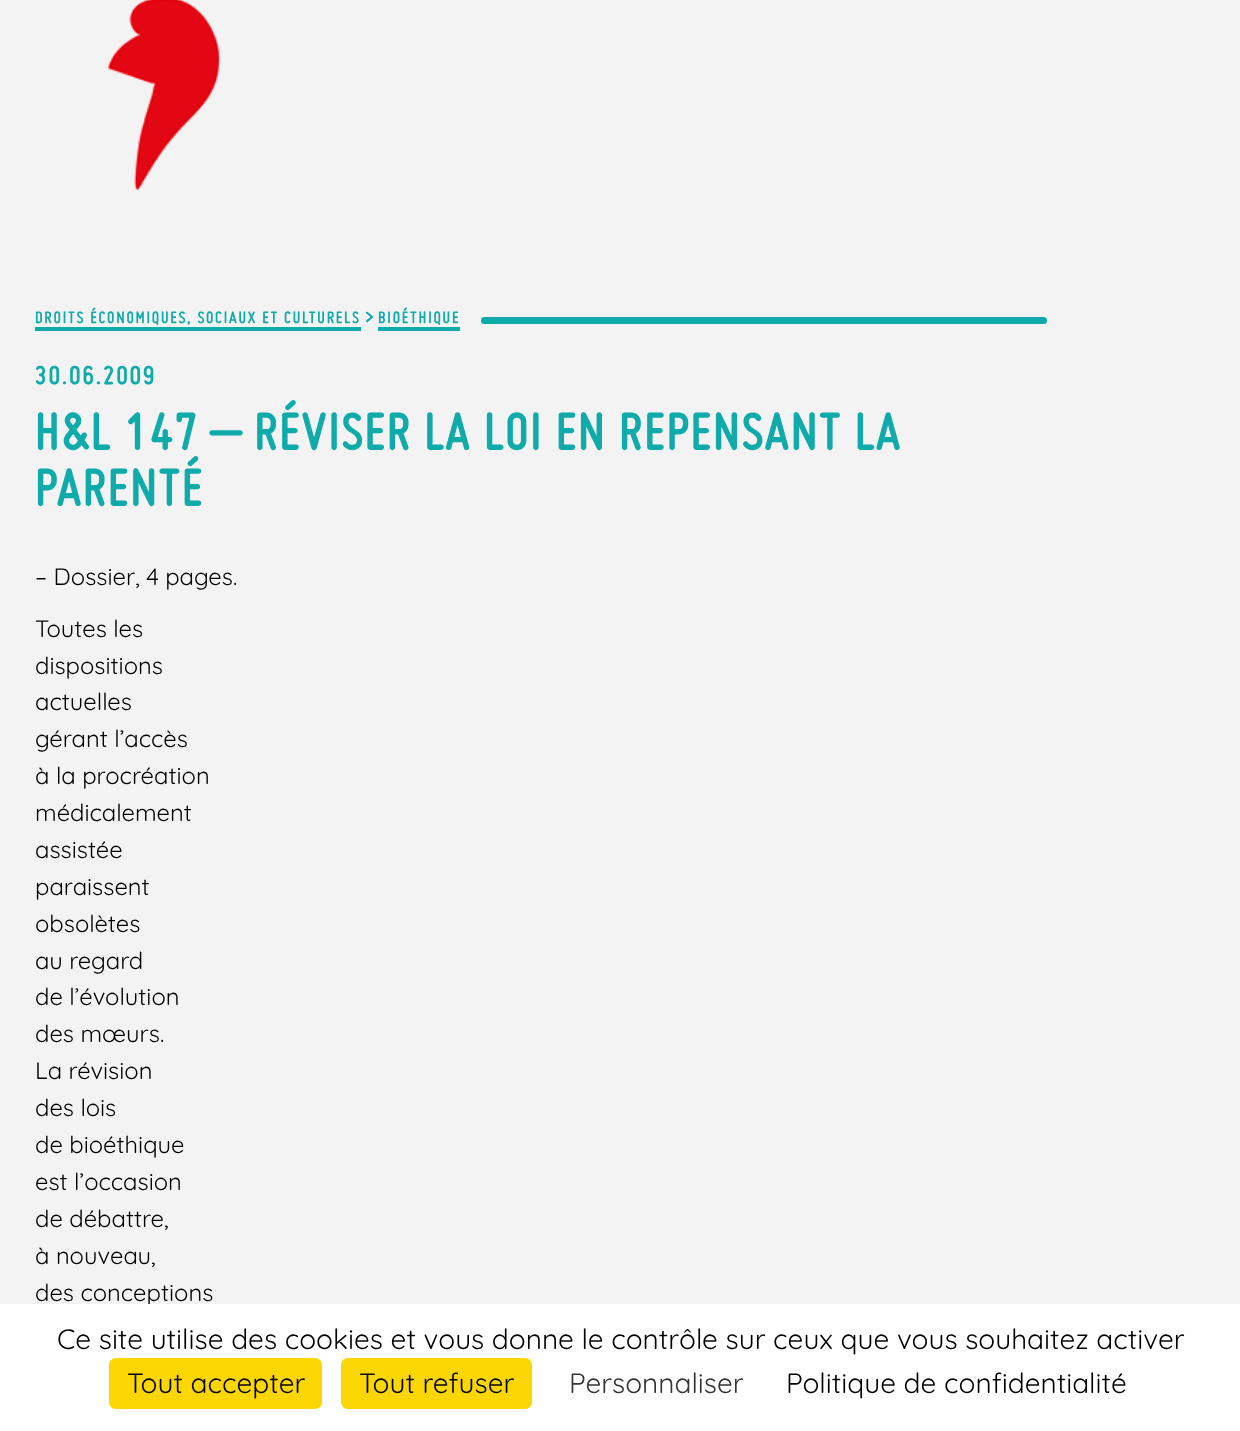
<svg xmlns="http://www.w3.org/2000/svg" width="1240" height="1431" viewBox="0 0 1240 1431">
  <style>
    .t1 { font: italic bold 17.8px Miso; letter-spacing: 1.75px; fill: #0faaaa; }
    .t2 { font: italic bold 21px Miso; fill: #0faaaa; }
    .t3 { font: italic bold 28px Miso; letter-spacing: 1.75px; fill: #0faaaa; }
    .t4 { font: italic bold 56px Miso; letter-spacing: 1.75px; fill: #0faaaa; }
    .t5 { font: 300 23.75px Quicksand; fill: #000; }
    .t6 { font: 300 28px Quicksand; fill: #000; }
    .t7 { font: 300 28px Quicksand; fill: #333; }
  </style>
  <rect width="100%" height="100%" fill="#f3f3f3"/>
  <image x="107" y="0" width="114" height="191" href="images/1.png"/>
  <text x="35" y="323" class="t1">DROITS ÉCONOMIQUES, SOCIAUX ET CULTURELS</text>
  <rect x="35" y="327" width="326" height="4" fill="#0faaaa"/>
  <text x="365" y="323" class="t2">&gt;</text>
  <text x="378" y="323" class="t1">BIOÉTHIQUE</text>
  <rect x="378" y="327" width="82" height="4" fill="#0faaaa"/>
  <rect x="481" y="317" width="566" height="7" rx="3.5" fill="#0faaaa"/>
  <text x="35" y="384" class="t3">30.06.2009</text>
  <text x="35" y="449" class="t4">H&amp;L 147 – RÉVISER LA LOI EN REPENSANT LA</text>
  <text x="35" y="505" class="t4">PARENTÉ</text>
  <text x="35" y="585" class="t5">– Dossier, 4 pages.</text>
  <text x="35" y="637" class="t5">Toutes les</text>
  <text x="35" y="674" class="t5">dispositions</text>
  <text x="35" y="710" class="t5">actuelles</text>
  <text x="35" y="747" class="t5">gérant l’accès</text>
  <text x="35" y="784" class="t5">à la procréation</text>
  <text x="35" y="821" class="t5">médicalement</text>
  <text x="35" y="858" class="t5">assistée</text>
  <text x="35" y="895" class="t5">paraissent</text>
  <text x="35" y="932" class="t5">obsolètes</text>
  <text x="35" y="969" class="t5">au regard</text>
  <text x="35" y="1005" class="t5">de l’évolution</text>
  <text x="35" y="1042" class="t5">des mœurs.</text>
  <text x="35" y="1079" class="t5">La révision</text>
  <text x="35" y="1116" class="t5">des lois</text>
  <text x="35" y="1153" class="t5">de bioéthique</text>
  <text x="35" y="1190" class="t5">est l’occasion</text>
  <text x="35" y="1227" class="t5">de débattre,</text>
  <text x="35" y="1264" class="t5">à nouveau,</text>
  <text x="35" y="1301" class="t5">des conceptions</text>
  <rect x="0" y="1304" width="1240" height="127" fill="#fff"/>
  <text x="57" y="1349" class="t6">Ce site utilise des cookies et vous donne le contrôle sur ceux que vous souhaitez activer</text>
  <rect x="109" y="1358" width="213" height="51" rx="7" fill="#fbd600"/>
  <text x="127" y="1393" class="t6">Tout accepter</text>
  <rect x="341" y="1358" width="191" height="51" rx="7" fill="#fbd600"/>
  <text x="359" y="1393" class="t6">Tout refuser</text>
  <text x="569" y="1393" class="t7">Personnaliser</text>
  <text x="786" y="1393" class="t6">Politique de confidentialité</text>
</svg>
